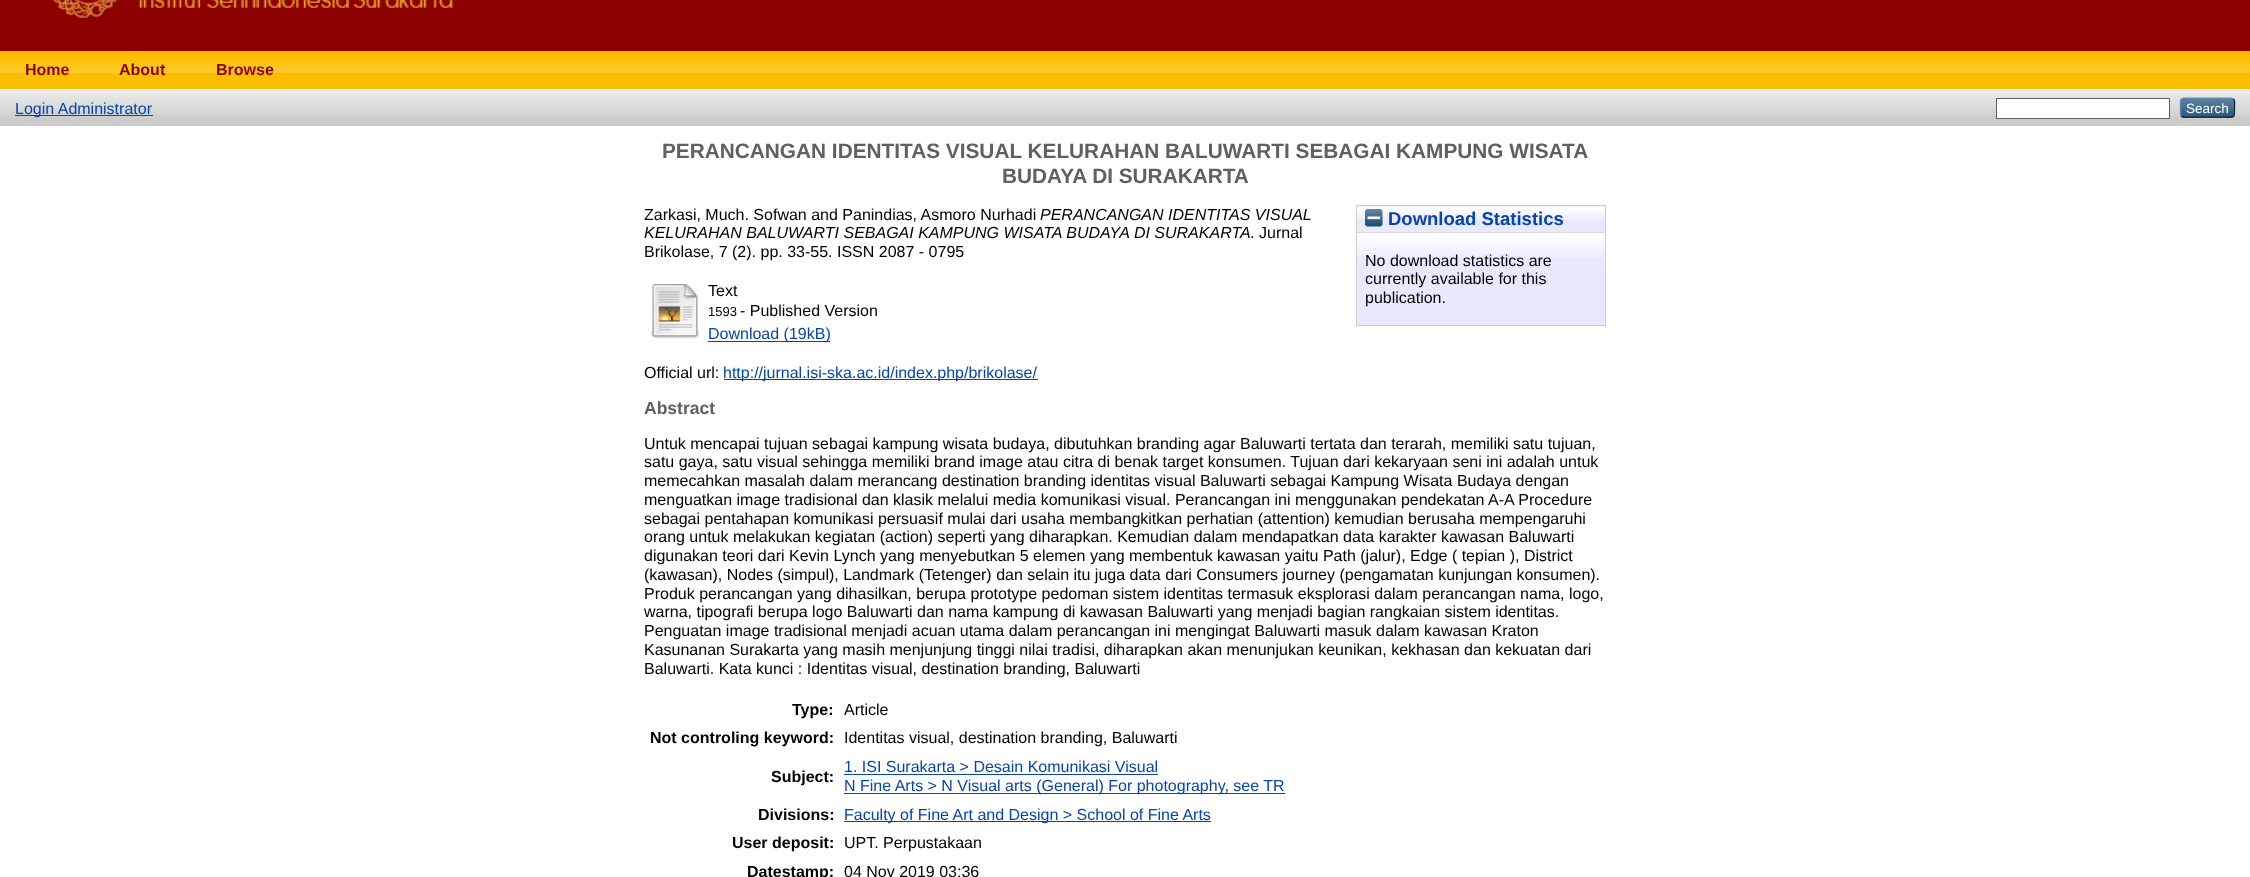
<svg xmlns="http://www.w3.org/2000/svg" width="2250" height="877" viewBox="0 0 2250 877">
  <style>
    .t1 { font: bold 16px Liberation Sans; fill: #8c0000; }
    .t2 { font: 16px Liberation Sans; fill: #0645ad; }
    .t3 { font: 13.5px Liberation Sans; fill: #fff; }
    .t4 { font: bold 20.8px Liberation Sans; fill: #606060; }
    .t5 { font: 16px Liberation Sans; fill: #000; }
    .t6 { font: italic 16px Liberation Sans; fill: #000; }
    .t7 { font: 13px Liberation Sans; fill: #000; }
    .t8 { font: bold 17.5px Liberation Sans; fill: #606060; }
    .t9 { font: bold 16px Liberation Sans; fill: #000; }
    .t10 { font: bold 18.5px Liberation Sans; fill: #0645ad; }
  </style>
  <rect width="100%" height="100%" fill="#fff"/>
  <rect x="0" y="0" width="2250" height="51" fill="#8c0000"/>
  <image x="52" y="0" width="401" height="18" href="images/1.png"/>
  <rect x="0" y="51" width="2250" height="38" fill="#fdbe00"/>
  <image x="0" y="59" width="2250" height="14" href="images/2.png"/>
  <text x="25" y="75" class="t1">Home</text>
  <text x="119" y="75" class="t1">About</text>
  <text x="216" y="75" class="t1">Browse</text>
  <rect x="0" y="90" width="2250" height="36" fill="#ccc"/>
  <image x="0" y="90" width="2250" height="27" href="images/3.png"/>
  <rect x="15" y="115" width="138" height="1" fill="#0645ad"/>
  <text x="15" y="114" class="t2">Login Administrator</text>
  <rect x="1996.5" y="98.5" width="173" height="20" fill="#fff" stroke="#606060"/>
  <rect x="2180" y="98" width="55" height="20" rx="4" fill="#1f4f76"/>
  <image x="2180" y="98" width="55" height="20" href="images/4.png"/>
  <path d="M2181.5 99L2183.5 98H2231.5L2233.5 99" fill="none" stroke="#5b97c7" stroke-width="1.2"/>
  <path d="M2233.5 99C2235.5 101 2234.5 105 2234.5 107.5C2234.5 118.5 2235 117 2223.5 117H2191.5C2191 117 2183.5 118 2181.5 116" fill="none" stroke="#0d2131" stroke-width="1.2"/>
  <path d="M2181.5 116C2180 114 2180.5 109.5 2180.5 107.5C2180.5 105.5 2180 101 2181.5 99" fill="none" stroke="#5287b3" stroke-width="1.2"/>
  <text x="2186" y="113" class="t3">Search</text>
  <text x="662" y="158" class="t4">PERANCANGAN IDENTITAS VISUAL KELURAHAN BALUWARTI SEBAGAI KAMPUNG WISATA</text>
  <text x="1002" y="183" class="t4">BUDAYA DI SURAKARTA</text>
  <text x="644" y="220" class="t5">Zarkasi, Much. Sofwan and Panindias, Asmoro Nurhadi</text>
  <text x="1040" y="220" class="t6">PERANCANGAN IDENTITAS VISUAL</text>
  <text x="644" y="238" class="t6">KELURAHAN BALUWARTI SEBAGAI KAMPUNG WISATA BUDAYA DI SURAKARTA.</text>
  <text x="1259" y="238" class="t5">Jurnal</text>
  <text x="644" y="257" class="t5">Brikolase, 7 (2). pp. 33-55. ISSN 2087 - 0795</text>
  <image x="650" y="284" width="50" height="55" href="images/5.png"/>
  <text x="708" y="296" class="t5">Text</text>
  <text x="708" y="316" class="t7">1593</text>
  <text x="740" y="316" class="t5">- Published Version</text>
  <rect x="708" y="341" width="122" height="1" fill="#0645ad"/>
  <text x="708" y="339" class="t2">Download (19kB)</text>
  <text x="644" y="378" class="t5">Official url:</text>
  <rect x="724" y="379" width="314" height="1" fill="#0645ad"/>
  <text x="723" y="378" class="t2">http://jurnal.isi-ska.ac.id/index.php/brikolase/</text>
  <text x="644" y="414" class="t8">Abstract</text>
  <text x="644" y="449" class="t5">Untuk mencapai tujuan sebagai kampung wisata budaya, dibutuhkan branding agar Baluwarti tertata dan terarah, memiliki satu tujuan,</text>
  <text x="644" y="467" class="t5">satu gaya, satu visual sehingga memiliki brand image atau citra di benak target konsumen. Tujuan dari kekaryaan seni ini adalah untuk</text>
  <text x="644" y="486" class="t5">memecahkan masalah dalam merancang destination branding identitas visual Baluwarti sebagai Kampung Wisata Budaya dengan</text>
  <text x="644" y="505" class="t5">menguatkan image tradisional dan klasik melalui media komunikasi visual. Perancangan ini menggunakan pendekatan A-A Procedure</text>
  <text x="644" y="524" class="t5">sebagai pentahapan komunikasi persuasif mulai dari usaha membangkitkan perhatian (attention) kemudian berusaha mempengaruhi</text>
  <text x="644" y="542" class="t5">orang untuk melakukan kegiatan (action) seperti yang diharapkan. Kemudian dalam mendapatkan data karakter kawasan Baluwarti</text>
  <text x="644" y="561" class="t5">digunakan teori dari Kevin Lynch yang menyebutkan 5 elemen yang membentuk kawasan yaitu Path (jalur), Edge ( tepian ), District</text>
  <text x="644" y="580" class="t5">(kawasan), Nodes (simpul), Landmark (Tetenger) dan selain itu juga data dari Consumers journey (pengamatan kunjungan konsumen).</text>
  <text x="644" y="599" class="t5">Produk perancangan yang dihasilkan, berupa prototype pedoman sistem identitas termasuk eksplorasi dalam perancangan nama, logo,</text>
  <text x="644" y="617" class="t5">warna, tipografi berupa logo Baluwarti dan nama kampung di kawasan Baluwarti yang menjadi bagian rangkaian sistem identitas.</text>
  <text x="644" y="636" class="t5">Penguatan image tradisional menjadi acuan utama dalam perancangan ini mengingat Baluwarti masuk dalam kawasan Kraton</text>
  <text x="644" y="655" class="t5">Kasunanan Surakarta yang masih menjunjung tinggi nilai tradisi, diharapkan akan menunjukan keunikan, kekhasan dan kekuatan dari</text>
  <text x="644" y="674" class="t5">Baluwarti. Kata kunci : Identitas visual, destination branding, Baluwarti</text>
  <text x="792" y="715" class="t9">Type:</text>
  <text x="844" y="715" class="t5">Article</text>
  <text x="650" y="743" class="t9">Not controling keyword:</text>
  <text x="844" y="743" class="t5">Identitas visual, destination branding, Baluwarti</text>
  <text x="771" y="782" class="t9">Subject:</text>
  <text x="844" y="772" class="t2">1. ISI Surakarta &gt; Desain Komunikasi Visual</text>
  <rect x="844" y="774" width="314" height="1" fill="#0645ad"/>
  <rect x="844" y="793" width="441" height="1" fill="#0645ad"/>
  <text x="844" y="791" class="t2">N Fine Arts &gt; N Visual arts (General) For photography, see TR</text>
  <text x="758" y="820" class="t9">Divisions:</text>
  <rect x="844" y="821" width="367" height="1" fill="#0645ad"/>
  <text x="844" y="820" class="t2">Faculty of Fine Art and Design &gt; School of Fine Arts</text>
  <text x="732" y="848" class="t9">User deposit:</text>
  <text x="844" y="848" class="t5">UPT. Perpustakaan</text>
  <text x="747" y="877" class="t9">Datestamp:</text>
  <text x="844" y="877" class="t5">04 Nov 2019 03:36</text>
  <rect x="1357" y="206" width="248" height="26" fill="#e8e8ff"/>
  <image x="1357" y="206" width="248" height="14" href="images/6.png"/>
  <rect x="1356.5" y="205.5" width="249" height="27" fill="none" stroke="#ccc"/>
  <image x="1365" y="209" width="18" height="18" href="images/7.png"/>
  <text x="1388" y="225" class="t10">Download Statistics</text>
  <rect x="1357" y="234" width="248" height="91" fill="#e8e8ff"/>
  <image x="1356" y="232" width="250" height="26" href="images/8.png"/>
  <rect x="1605" y="233" width="1" height="93" fill="#ccc"/>
  <rect x="1356" y="325" width="250" height="1" fill="#ccc"/>
  <rect x="1356" y="233" width="1" height="93" fill="#ccc"/>
  <text x="1365" y="266" class="t5">No download statistics are</text>
  <text x="1365" y="284" class="t5">currently available for this</text>
  <text x="1365" y="303" class="t5">publication.</text>
</svg>
